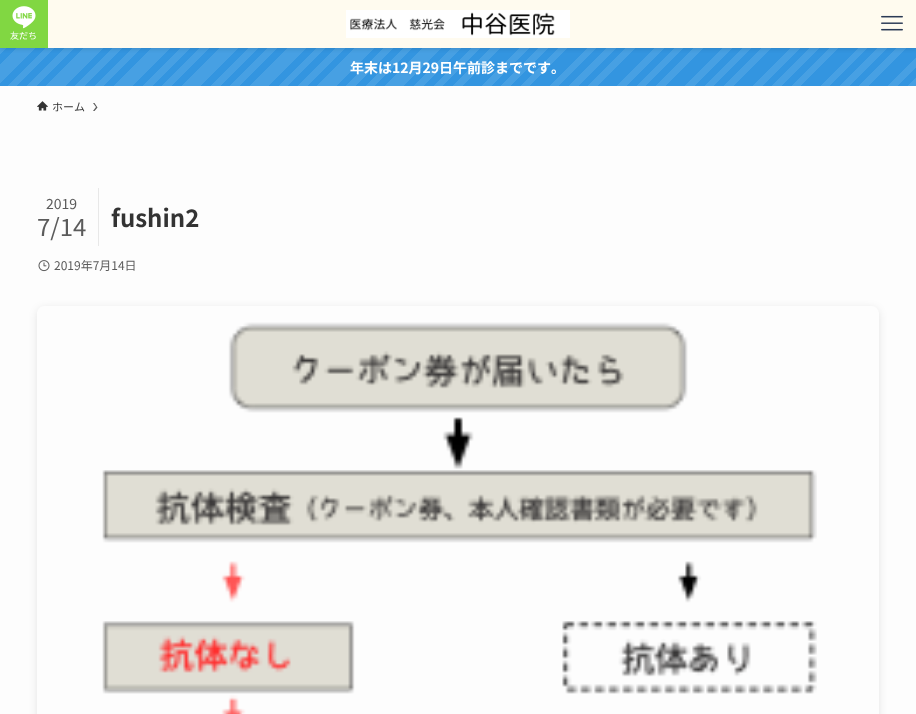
<svg xmlns="http://www.w3.org/2000/svg" width="916" height="714" viewBox="0 0 916 714">
  <style>*{font-kerning:none!important;font-variant-ligatures:none!important}</style>
  <style>
    .t1 { font: 9px Noto Sans JP; fill: #fff; }
    .t2 { font: bold 14px Noto Sans JP; fill: #fff; }
    .t3 { font: 11px Noto Sans JP; fill: #333; }
    .t4 { font: 14px Noto Sans JP; fill: #5b5b5b; }
    .t5 { font: 24px Noto Sans JP; fill: #5b5b5b; }
    .t6 { font: bold 24px Noto Sans JP; fill: #333; }
    .t7 { font: 12px Noto Sans JP; fill: #5b5b5b; }
  </style>
  <defs>
    <linearGradient id="g1" gradientUnits="userSpaceOnUse" x1="697" y1="306" x2="213" y2="-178"><stop offset="0" stop-color="#47a0e3"/><stop offset="0.01" stop-color="#47a0e3"/><stop offset="0.01" stop-color="#3395e0"/><stop offset="0.02" stop-color="#3395e0"/><stop offset="0.02" stop-color="#47a0e3"/><stop offset="0.03" stop-color="#47a0e3"/><stop offset="0.03" stop-color="#3395e0"/><stop offset="0.04" stop-color="#3395e0"/><stop offset="0.04" stop-color="#47a0e3"/><stop offset="0.04" stop-color="#3395e0"/><stop offset="0.05" stop-color="#3395e0"/><stop offset="0.05" stop-color="#47a0e3"/><stop offset="0.06" stop-color="#47a0e3"/><stop offset="0.06" stop-color="#3395e0"/><stop offset="0.07" stop-color="#3395e0"/><stop offset="0.07" stop-color="#47a0e3"/><stop offset="0.08" stop-color="#47a0e3"/><stop offset="0.08" stop-color="#3395e0"/><stop offset="0.09" stop-color="#3395e0"/><stop offset="0.09" stop-color="#47a0e3"/><stop offset="0.1" stop-color="#47a0e3"/><stop offset="0.1" stop-color="#3395e0"/><stop offset="0.11" stop-color="#3395e0"/><stop offset="0.11" stop-color="#47a0e3"/><stop offset="0.11" stop-color="#3395e0"/><stop offset="0.12" stop-color="#3395e0"/><stop offset="0.12" stop-color="#47a0e3"/><stop offset="0.13" stop-color="#47a0e3"/><stop offset="0.13" stop-color="#3395e0"/><stop offset="0.14" stop-color="#3395e0"/><stop offset="0.14" stop-color="#47a0e3"/><stop offset="0.15" stop-color="#47a0e3"/><stop offset="0.15" stop-color="#3395e0"/><stop offset="0.16" stop-color="#3395e0"/><stop offset="0.16" stop-color="#47a0e3"/><stop offset="0.17" stop-color="#47a0e3"/><stop offset="0.17" stop-color="#3395e0"/><stop offset="0.18" stop-color="#3395e0"/><stop offset="0.18" stop-color="#47a0e3"/><stop offset="0.18" stop-color="#3395e0"/><stop offset="0.19" stop-color="#3395e0"/><stop offset="0.19" stop-color="#47a0e3"/><stop offset="0.2" stop-color="#47a0e3"/><stop offset="0.2" stop-color="#3395e0"/><stop offset="0.21" stop-color="#3395e0"/><stop offset="0.21" stop-color="#47a0e3"/><stop offset="0.22" stop-color="#47a0e3"/><stop offset="0.22" stop-color="#3395e0"/><stop offset="0.23" stop-color="#3395e0"/><stop offset="0.23" stop-color="#47a0e3"/><stop offset="0.24" stop-color="#47a0e3"/><stop offset="0.24" stop-color="#3395e0"/><stop offset="0.25" stop-color="#3395e0"/><stop offset="0.25" stop-color="#47a0e3"/><stop offset="0.25" stop-color="#3395e0"/><stop offset="0.26" stop-color="#3395e0"/><stop offset="0.26" stop-color="#47a0e3"/><stop offset="0.27" stop-color="#47a0e3"/><stop offset="0.27" stop-color="#3395e0"/><stop offset="0.28" stop-color="#3395e0"/><stop offset="0.28" stop-color="#47a0e3"/><stop offset="0.29" stop-color="#47a0e3"/><stop offset="0.29" stop-color="#3395e0"/><stop offset="0.3" stop-color="#3395e0"/><stop offset="0.3" stop-color="#47a0e3"/><stop offset="0.31" stop-color="#47a0e3"/><stop offset="0.31" stop-color="#3395e0"/><stop offset="0.32" stop-color="#3395e0"/><stop offset="0.32" stop-color="#47a0e3"/><stop offset="0.32" stop-color="#3395e0"/><stop offset="0.33" stop-color="#3395e0"/><stop offset="0.33" stop-color="#47a0e3"/><stop offset="0.34" stop-color="#47a0e3"/><stop offset="0.34" stop-color="#3395e0"/><stop offset="0.35" stop-color="#3395e0"/><stop offset="0.35" stop-color="#47a0e3"/><stop offset="0.36" stop-color="#47a0e3"/><stop offset="0.36" stop-color="#3395e0"/><stop offset="0.37" stop-color="#3395e0"/><stop offset="0.37" stop-color="#47a0e3"/><stop offset="0.38" stop-color="#47a0e3"/><stop offset="0.38" stop-color="#3395e0"/><stop offset="0.39" stop-color="#3395e0"/><stop offset="0.39" stop-color="#47a0e3"/><stop offset="0.39" stop-color="#3395e0"/><stop offset="0.4" stop-color="#3395e0"/><stop offset="0.4" stop-color="#47a0e3"/><stop offset="0.41" stop-color="#47a0e3"/><stop offset="0.41" stop-color="#3395e0"/><stop offset="0.42" stop-color="#3395e0"/><stop offset="0.42" stop-color="#47a0e3"/><stop offset="0.43" stop-color="#47a0e3"/><stop offset="0.43" stop-color="#3395e0"/><stop offset="0.44" stop-color="#3395e0"/><stop offset="0.44" stop-color="#47a0e3"/><stop offset="0.45" stop-color="#47a0e3"/><stop offset="0.45" stop-color="#3395e0"/><stop offset="0.46" stop-color="#3395e0"/><stop offset="0.46" stop-color="#47a0e3"/><stop offset="0.46" stop-color="#3395e0"/><stop offset="0.47" stop-color="#3395e0"/><stop offset="0.47" stop-color="#47a0e3"/><stop offset="0.48" stop-color="#47a0e3"/><stop offset="0.48" stop-color="#3395e0"/><stop offset="0.49" stop-color="#3395e0"/><stop offset="0.49" stop-color="#47a0e3"/><stop offset="0.5" stop-color="#47a0e3"/><stop offset="0.5" stop-color="#3395e0"/><stop offset="0.51" stop-color="#3395e0"/><stop offset="0.51" stop-color="#47a0e3"/><stop offset="0.52" stop-color="#47a0e3"/><stop offset="0.52" stop-color="#3395e0"/><stop offset="0.53" stop-color="#3395e0"/><stop offset="0.53" stop-color="#47a0e3"/><stop offset="0.54" stop-color="#47a0e3"/><stop offset="0.54" stop-color="#3395e0"/><stop offset="0.54" stop-color="#47a0e3"/><stop offset="0.55" stop-color="#47a0e3"/><stop offset="0.55" stop-color="#3395e0"/><stop offset="0.56" stop-color="#3395e0"/><stop offset="0.56" stop-color="#47a0e3"/><stop offset="0.57" stop-color="#47a0e3"/><stop offset="0.57" stop-color="#3395e0"/><stop offset="0.58" stop-color="#3395e0"/><stop offset="0.58" stop-color="#47a0e3"/><stop offset="0.59" stop-color="#47a0e3"/><stop offset="0.59" stop-color="#3395e0"/><stop offset="0.6" stop-color="#3395e0"/><stop offset="0.6" stop-color="#47a0e3"/><stop offset="0.61" stop-color="#47a0e3"/><stop offset="0.61" stop-color="#3395e0"/><stop offset="0.61" stop-color="#47a0e3"/><stop offset="0.62" stop-color="#47a0e3"/><stop offset="0.62" stop-color="#3395e0"/><stop offset="0.63" stop-color="#3395e0"/><stop offset="0.63" stop-color="#47a0e3"/><stop offset="0.64" stop-color="#47a0e3"/><stop offset="0.64" stop-color="#3395e0"/><stop offset="0.65" stop-color="#3395e0"/><stop offset="0.65" stop-color="#47a0e3"/><stop offset="0.66" stop-color="#47a0e3"/><stop offset="0.66" stop-color="#3395e0"/><stop offset="0.67" stop-color="#3395e0"/><stop offset="0.67" stop-color="#47a0e3"/><stop offset="0.68" stop-color="#47a0e3"/><stop offset="0.68" stop-color="#3395e0"/><stop offset="0.68" stop-color="#47a0e3"/><stop offset="0.69" stop-color="#47a0e3"/><stop offset="0.69" stop-color="#3395e0"/><stop offset="0.7" stop-color="#3395e0"/><stop offset="0.7" stop-color="#47a0e3"/><stop offset="0.71" stop-color="#47a0e3"/><stop offset="0.71" stop-color="#3395e0"/><stop offset="0.72" stop-color="#3395e0"/><stop offset="0.72" stop-color="#47a0e3"/><stop offset="0.73" stop-color="#47a0e3"/><stop offset="0.73" stop-color="#3395e0"/><stop offset="0.74" stop-color="#3395e0"/><stop offset="0.74" stop-color="#47a0e3"/><stop offset="0.75" stop-color="#47a0e3"/><stop offset="0.75" stop-color="#3395e0"/><stop offset="0.75" stop-color="#47a0e3"/><stop offset="0.76" stop-color="#47a0e3"/><stop offset="0.76" stop-color="#3395e0"/><stop offset="0.77" stop-color="#3395e0"/><stop offset="0.77" stop-color="#47a0e3"/><stop offset="0.78" stop-color="#47a0e3"/><stop offset="0.78" stop-color="#3395e0"/><stop offset="0.79" stop-color="#3395e0"/><stop offset="0.79" stop-color="#47a0e3"/><stop offset="0.8" stop-color="#47a0e3"/><stop offset="0.8" stop-color="#3395e0"/><stop offset="0.81" stop-color="#3395e0"/><stop offset="0.81" stop-color="#47a0e3"/><stop offset="0.82" stop-color="#47a0e3"/><stop offset="0.82" stop-color="#3395e0"/><stop offset="0.82" stop-color="#47a0e3"/><stop offset="0.83" stop-color="#47a0e3"/><stop offset="0.83" stop-color="#3395e0"/><stop offset="0.84" stop-color="#3395e0"/><stop offset="0.84" stop-color="#47a0e3"/><stop offset="0.85" stop-color="#47a0e3"/><stop offset="0.85" stop-color="#3395e0"/><stop offset="0.86" stop-color="#3395e0"/><stop offset="0.86" stop-color="#47a0e3"/><stop offset="0.87" stop-color="#47a0e3"/><stop offset="0.87" stop-color="#3395e0"/><stop offset="0.88" stop-color="#3395e0"/><stop offset="0.88" stop-color="#47a0e3"/><stop offset="0.89" stop-color="#47a0e3"/><stop offset="0.89" stop-color="#3395e0"/><stop offset="0.89" stop-color="#47a0e3"/><stop offset="0.9" stop-color="#47a0e3"/><stop offset="0.9" stop-color="#3395e0"/><stop offset="0.91" stop-color="#3395e0"/><stop offset="0.91" stop-color="#47a0e3"/><stop offset="0.92" stop-color="#47a0e3"/><stop offset="0.92" stop-color="#3395e0"/><stop offset="0.93" stop-color="#3395e0"/><stop offset="0.93" stop-color="#47a0e3"/><stop offset="0.94" stop-color="#47a0e3"/><stop offset="0.94" stop-color="#3395e0"/><stop offset="0.95" stop-color="#3395e0"/><stop offset="0.95" stop-color="#47a0e3"/><stop offset="0.96" stop-color="#47a0e3"/><stop offset="0.96" stop-color="#3395e0"/><stop offset="0.96" stop-color="#47a0e3"/><stop offset="0.97" stop-color="#47a0e3"/><stop offset="0.97" stop-color="#3395e0"/><stop offset="0.98" stop-color="#3395e0"/><stop offset="0.98" stop-color="#47a0e3"/><stop offset="0.99" stop-color="#47a0e3"/><stop offset="0.99" stop-color="#3395e0"/><stop offset="1" stop-color="#3395e0"/></linearGradient>
    <clipPath id="clip1"><path d="M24 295H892V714H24ZM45 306H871C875.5 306 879 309.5 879 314V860C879 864.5 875.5 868 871 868H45C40.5 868 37 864.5 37 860V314C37 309.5 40.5 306 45 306Z" clip-rule="evenodd"/></clipPath>
  </defs>
  <rect width="100%" height="100%" fill="#fdfdfd"/>
  <rect x="0" y="48" width="916" height="38" fill="url(#g1)"/>
  <rect x="0" y="1" width="916" height="48" fill="#0000001f" filter="blur(2px)"/>
  <rect x="48" y="0" width="868" height="48" fill="#fffbef"/>
  <image x="346" y="10" width="224" height="28" href="images/1.png"/>
  <image x="881" y="15" width="22" height="16" href="images/2.png"/>
  <rect x="0" y="0" width="48" height="48" fill="#81d742"/>
  <image x="12" y="6" width="24" height="23" href="images/3.png"/>
  <text x="10" y="39" class="t1">友だち</text>
  <text x="350" y="73" class="t2">年末は12月29日午前診までです。</text>
  <image x="37" y="101" width="11" height="10" href="images/4.png"/>
  <text x="52" y="111" class="t3">ホーム</text>
  <path d="M94.5 103H93L96 107L93 111H94.5L97.5 107.5Z" fill="#5b5b5b"/>
  <rect x="98" y="188" width="1" height="58" fill="#e8e8e8"/>
  <text x="46" y="209" class="t4">2019</text>
  <text x="37" y="236" class="t5">7/14</text>
  <text x="111" y="227" class="t6">fushin2</text>
  <image x="38" y="260" width="12" height="12" href="images/5.png"/>
  <text x="54" y="270" class="t7">2019年7月14日</text>
  <g clip-path="url(#clip1)">
    <rect x="37" y="308" width="842" height="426" rx="8" fill="#0000001a" filter="blur(4px)"/>
  </g>
  <image x="102" y="322" width="715" height="392" href="images/6.png"/>
</svg>
